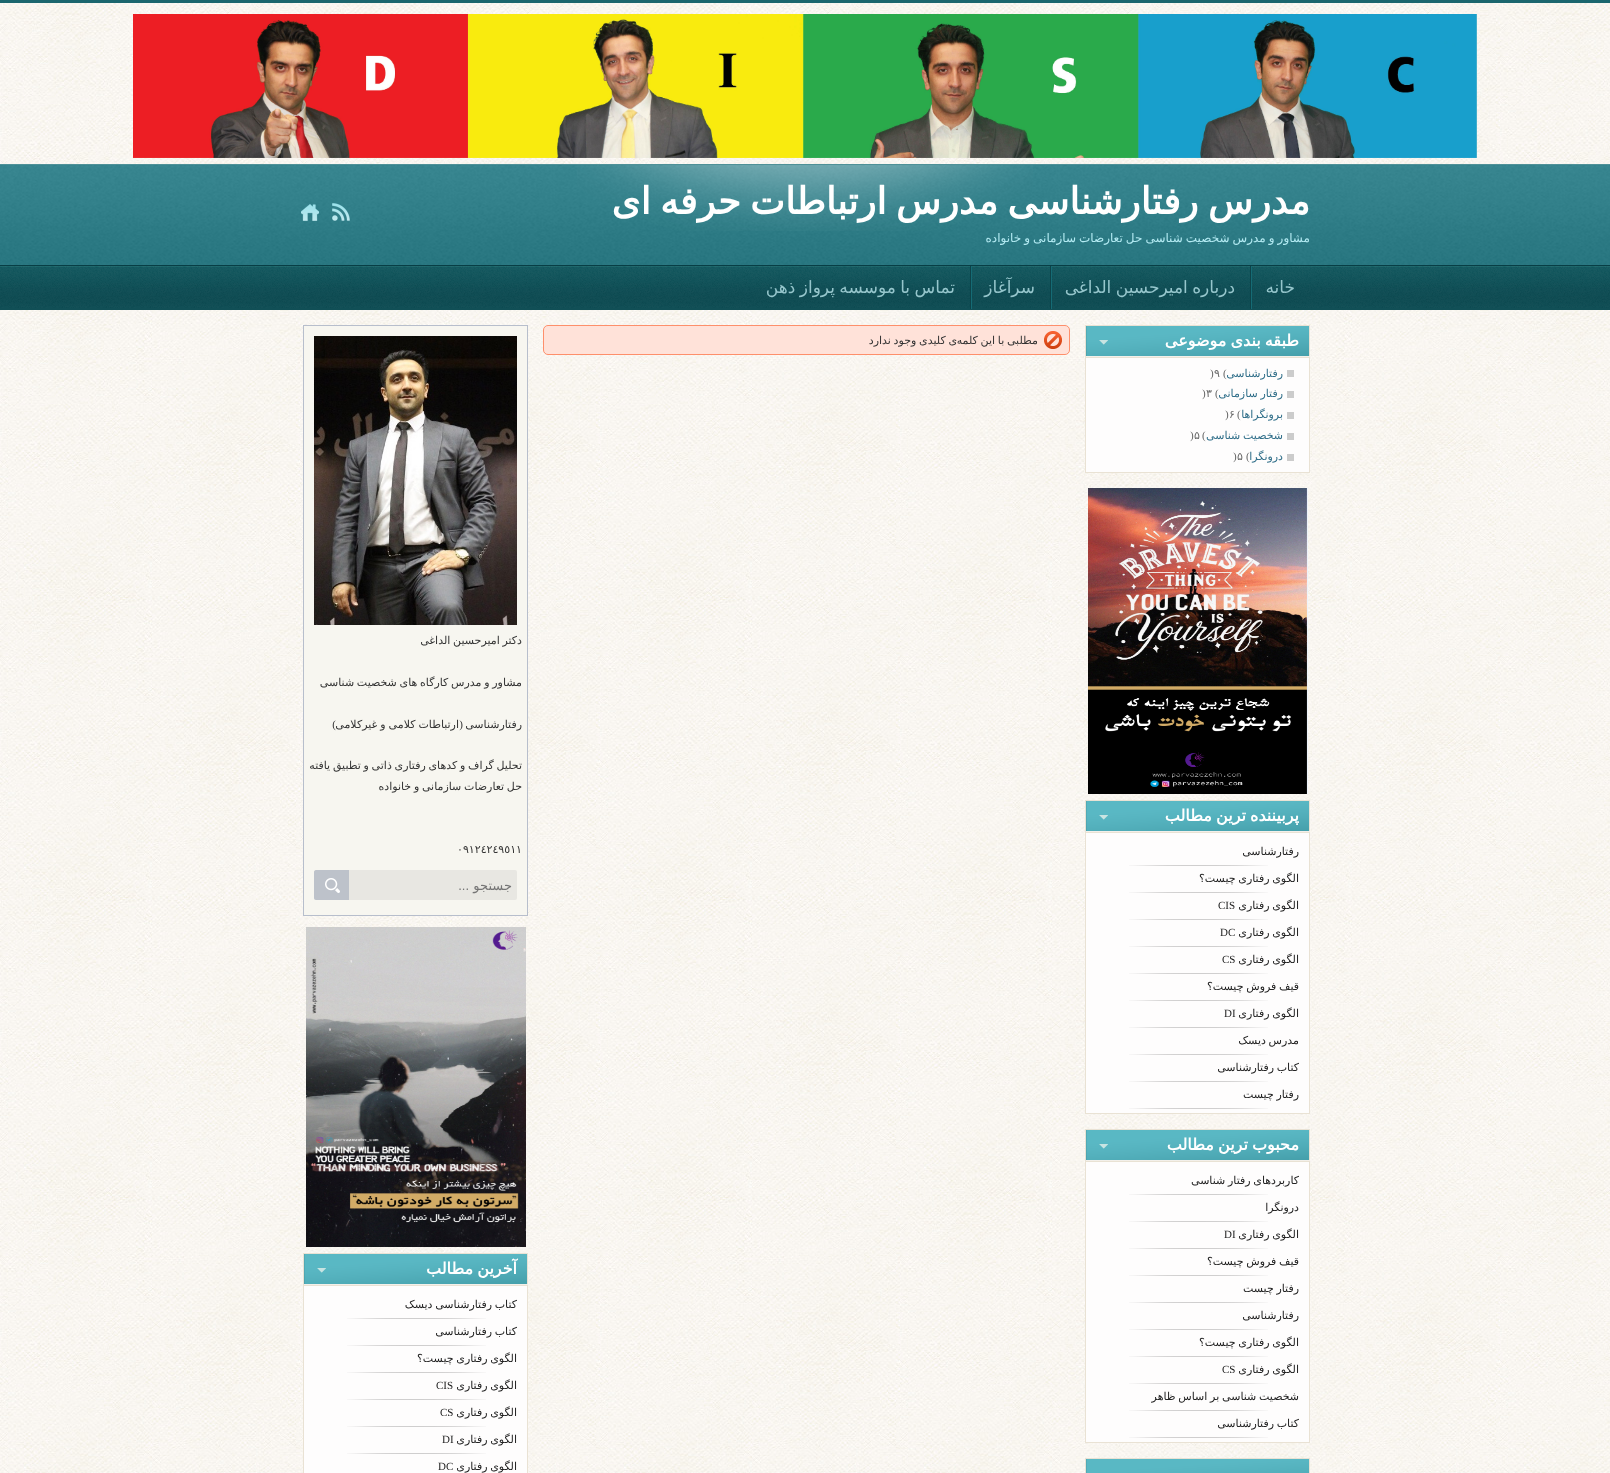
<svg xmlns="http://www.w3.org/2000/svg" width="1610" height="1473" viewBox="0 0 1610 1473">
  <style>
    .t1 { font: bold 37px DejaVu Sans; direction: rtl; fill: #fff; }
    .t2 { font: 12px DejaVu Sans; direction: rtl; fill: #b3eaf2; }
    .t3 { font: 17px DejaVu Sans; direction: rtl; fill: #96c6cc; }
    .t4 { font: bold 16px DejaVu Sans; direction: rtl; fill: #fff; }
    .t5 { font: 11px DejaVu Sans; direction: rtl; fill: #2f6e89; }
    .t6 { font: 11px Liberation Serif; fill: #666; }
    .t7 { font: 11px DejaVu Sans; fill: #666; }
    .t8 { font: 11px DejaVu Sans; direction: rtl; fill: #222; }
    .t9 { font: 11px Liberation Serif; fill: #222; }
    .t10 { font: 11px DejaVu Sans; direction: rtl; fill: #333; }
    .t11 { font: 11px Liberation Serif; direction: rtl; fill: #333; }
    .t12 { font: 11px DejaVu Sans; fill: #333; }
    .t13 { font: 13px DejaVu Sans; direction: rtl; fill: #757575; }
    .t14 { font: 13px Liberation Sans; direction: rtl; fill: #757575; }
  </style>
  <rect width="100%" height="100%" fill="#fff"/>
  <image x="0" y="3" width="1610" height="1470" href="images/1.png"/>
  <rect x="0" y="0" width="1610" height="3" fill="#1b666e"/>
  <image x="133" y="14" width="1344" height="144" href="images/2.png"/>
  <rect x="0" y="165" width="1610" height="100" fill="#277d88"/>
  <image x="0" y="165" width="1610" height="100" href="images/3.png"/>
  <rect x="0" y="164" width="1610" height="1" fill="#4f9198"/>
  <rect x="0" y="265" width="1610" height="1" fill="#083e45"/>
  <image x="577" y="165" width="456" height="66" href="images/4.png"/>
  <text x="1310" y="214" word-spacing="-2.5" class="t1">مدرس رفتارشناسى مدرس ارتباطات حرفه اى</text>
  <text x="1310" y="242" word-spacing="-0.75" class="t2">مشاور و مدرس شخصیت شناسى حل تعارضات سازمانى و خانواده</text>
  <image x="332" y="203" width="18" height="18" href="images/5.png"/>
  <image x="301" y="204" width="18" height="17" href="images/6.png"/>
  <rect x="0" y="308" width="1610" height="2" fill="#114f56"/>
  <image x="0" y="266" width="1610" height="42" href="images/7.png"/>
  <image x="1250" y="266" width="2" height="43" href="images/8.png"/>
  <text x="1295" y="293" class="t3">خانه</text>
  <image x="1050" y="266" width="2" height="43" href="images/8.png"/>
  <text x="1235" y="293" word-spacing="-1" class="t3">درباره امیرحسین الداغی</text>
  <image x="970" y="266" width="2" height="43" href="images/8.png"/>
  <text x="1035" y="293" class="t3">سرآغاز</text>
  <text x="955" y="293" word-spacing="-1" class="t3">تماس با موسسه پرواز ذهن</text>
  <image x="1086" y="326" width="223" height="30" href="images/9.png"/>
  <rect x="1085" y="325" width="225" height="1" fill="#e9e2d4"/>
  <rect x="1309" y="325" width="1" height="32" fill="#e9e2d4"/>
  <rect x="1085" y="356" width="225" height="1" fill="#f3f0ea"/>
  <rect x="1085" y="325" width="1" height="32" fill="#e9e2d4"/>
  <text x="1299" y="346" word-spacing="-1" class="t4">طبقه بندی موضوعی</text>
  <rect x="1085.5" y="357.5" width="224" height="115" fill="#fefdfd" stroke="#e9e2d4"/>
  <rect x="1287" y="370" width="7" height="7" fill="#ccc"/>
  <text x="1283" y="377" class="t5">رفتارشناسی</text>
  <text x="1223" y="377" class="t6">(</text>
  <text x="1214" y="377" class="t7">۹</text>
  <text x="1210" y="377" class="t6">)</text>
  <rect x="1287" y="391" width="7" height="7" fill="#ccc"/>
  <text x="1283" y="397" word-spacing="-0.75" class="t5">رفتار سازمانی</text>
  <text x="1215" y="397" class="t6">(</text>
  <text x="1206" y="397" class="t7">۳</text>
  <text x="1202" y="397" class="t6">)</text>
  <rect x="1287" y="412" width="7" height="7" fill="#ccc"/>
  <text x="1283" y="418" class="t5">برونگراها</text>
  <text x="1237" y="418" class="t6">(</text>
  <text x="1229" y="418" class="t7">۶</text>
  <text x="1225" y="418" class="t6">)</text>
  <rect x="1287" y="433" width="7" height="7" fill="#ccc"/>
  <text x="1283" y="439" word-spacing="-0.75" class="t5">شخصیت شناسی</text>
  <text x="1202" y="439" class="t6">(</text>
  <text x="1194" y="439" class="t7">۵</text>
  <text x="1190" y="439" class="t6">)</text>
  <rect x="1287" y="454" width="7" height="7" fill="#ccc"/>
  <text x="1283" y="460" class="t5">درونگرا</text>
  <text x="1246" y="460" class="t6">(</text>
  <text x="1237" y="460" class="t7">۵</text>
  <text x="1233" y="460" class="t6">)</text>
  <image x="1088" y="488" width="220" height="306" href="images/10.png"/>
  <image x="1086" y="801" width="223" height="30" href="images/9.png"/>
  <rect x="1085" y="800" width="225" height="1" fill="#e9e2d4"/>
  <rect x="1309" y="800" width="1" height="32" fill="#e9e2d4"/>
  <rect x="1085" y="831" width="225" height="1" fill="#f3f0ea"/>
  <rect x="1085" y="800" width="1" height="32" fill="#e9e2d4"/>
  <text x="1299" y="821" word-spacing="-1" class="t4">پربیننده ترین مطالب</text>
  <rect x="1085.5" y="832.5" width="224" height="281" fill="#fefdfd" stroke="#e9e2d4"/>
  <image x="1129" y="865" width="139" height="1" href="images/11.png"/>
  <text x="1299" y="855" class="t8">رفتارشناسی</text>
  <image x="1129" y="892" width="139" height="1" href="images/11.png"/>
  <text x="1299" y="882" word-spacing="-0.75" class="t8">الگوی رفتاری چیست؟</text>
  <image x="1129" y="919" width="139" height="1" href="images/11.png"/>
  <text x="1299" y="909" word-spacing="-0.75" class="t8">الگوی رفتاری</text>
  <text x="1218" y="909" class="t9">CIS</text>
  <image x="1129" y="946" width="139" height="1" href="images/11.png"/>
  <text x="1299" y="936" word-spacing="-0.75" class="t8">الگوی رفتاری</text>
  <text x="1220" y="936" class="t9">DC</text>
  <image x="1129" y="973" width="139" height="1" href="images/11.png"/>
  <text x="1299" y="963" word-spacing="-0.75" class="t8">الگوی رفتاری</text>
  <text x="1222" y="963" class="t9">CS</text>
  <image x="1129" y="1000" width="139" height="1" href="images/11.png"/>
  <text x="1299" y="990" word-spacing="-0.75" class="t8">قیف فروش چیست؟</text>
  <image x="1129" y="1027" width="139" height="1" href="images/11.png"/>
  <text x="1299" y="1017" word-spacing="-0.75" class="t8">الگوی رفتاری</text>
  <text x="1224" y="1017" class="t9">DI</text>
  <image x="1129" y="1054" width="139" height="1" href="images/11.png"/>
  <text x="1299" y="1044" word-spacing="-0.75" class="t8">مدرس دیسک</text>
  <image x="1129" y="1081" width="139" height="1" href="images/11.png"/>
  <text x="1299" y="1071" word-spacing="-0.75" class="t8">کتاب رفتارشناسی</text>
  <image x="1129" y="1108" width="139" height="1" href="images/11.png"/>
  <text x="1299" y="1098" word-spacing="-0.75" class="t8">رفتار چیست</text>
  <image x="1086" y="1130" width="223" height="30" href="images/9.png"/>
  <rect x="1085" y="1129" width="225" height="1" fill="#e9e2d4"/>
  <rect x="1309" y="1129" width="1" height="32" fill="#e9e2d4"/>
  <rect x="1085" y="1160" width="225" height="1" fill="#f3f0ea"/>
  <rect x="1085" y="1129" width="1" height="32" fill="#e9e2d4"/>
  <text x="1299" y="1150" word-spacing="-1" class="t4">محبوب ترین مطالب</text>
  <rect x="1085.5" y="1161.5" width="224" height="281" fill="#fefdfd" stroke="#e9e2d4"/>
  <image x="1129" y="1194" width="139" height="1" href="images/11.png"/>
  <text x="1299" y="1184" word-spacing="-0.75" class="t8">کاربردهای رفتار شناسی</text>
  <image x="1129" y="1221" width="139" height="1" href="images/11.png"/>
  <text x="1299" y="1211" class="t8">درونگرا</text>
  <image x="1129" y="1248" width="139" height="1" href="images/11.png"/>
  <text x="1299" y="1238" word-spacing="-0.75" class="t8">الگوی رفتاری</text>
  <text x="1224" y="1238" class="t9">DI</text>
  <image x="1129" y="1275" width="139" height="1" href="images/11.png"/>
  <text x="1299" y="1265" word-spacing="-0.75" class="t8">قیف فروش چیست؟</text>
  <image x="1129" y="1302" width="139" height="1" href="images/11.png"/>
  <text x="1299" y="1292" word-spacing="-0.75" class="t8">رفتار چیست</text>
  <image x="1129" y="1329" width="139" height="1" href="images/11.png"/>
  <text x="1299" y="1319" class="t8">رفتارشناسی</text>
  <image x="1129" y="1356" width="139" height="1" href="images/11.png"/>
  <text x="1299" y="1346" word-spacing="-0.75" class="t8">الگوی رفتاری چیست؟</text>
  <image x="1129" y="1383" width="139" height="1" href="images/11.png"/>
  <text x="1299" y="1373" word-spacing="-0.75" class="t8">الگوی رفتاری</text>
  <text x="1222" y="1373" class="t9">CS</text>
  <image x="1129" y="1410" width="139" height="1" href="images/11.png"/>
  <text x="1299" y="1400" word-spacing="-0.75" class="t8">شخصیت شناسی بر اساس ظاهر</text>
  <image x="1129" y="1437" width="139" height="1" href="images/11.png"/>
  <text x="1299" y="1427" word-spacing="-0.75" class="t8">کتاب رفتارشناسی</text>
  <image x="1086" y="1459" width="223" height="14" href="images/12.png"/>
  <rect x="1085" y="1458" width="225" height="1" fill="#e9e2d4"/>
  <rect x="1309" y="1458" width="1" height="15" fill="#e9e2d4"/>
  <rect x="1085" y="1458" width="1" height="15" fill="#e9e2d4"/>
  <rect x="543.5" y="325.5" width="526" height="29" rx="4.5" fill="#ffe2d9" stroke="#fe8f6b"/>
  <image x="1044" y="331" width="18" height="18" href="images/13.png"/>
  <text x="1038" y="344" word-spacing="-0.75" class="t10">مطلبی با این کلمه</text>
  <text x="957" y="344" word-spacing="-0.75" class="t10">ی کلیدی وجود ندارد</text>
  <rect x="304" y="326" width="223" height="589" fill="#f7f6f0"/>
  <image x="312" y="381" width="2" height="240" href="images/14.png"/>
  <rect x="303.5" y="325.5" width="224" height="590" fill="none" stroke="#b7becc"/>
  <image x="314" y="336" width="203" height="289" href="images/15.png"/>
  <text x="522" y="644" word-spacing="-0.75" class="t10">دکتر امیرحسین الداغی</text>
  <text x="522" y="686" word-spacing="-0.75" class="t10">مشاور و مدرس کارگاه های شخصیت شناسی</text>
  <text x="522" y="728" class="t10">رفتارشناسی</text>
  <text x="463" y="728" class="t11">(</text>
  <text x="459" y="728" word-spacing="-0.5" class="t10">ارتباطات کلامی و غیرکلامی</text>
  <text x="336" y="728" class="t11">)</text>
  <text x="522" y="769" word-spacing="-0.75" class="t10">تحلیل گراف و کدهای رفتاری ذاتى و تطبیق یافته</text>
  <text x="522" y="790" word-spacing="-0.75" class="t10">حل تعارضات سازمانى و خانواده</text>
  <text x="457" y="853" class="t12">٠٩١٢٤٢٤٩٥١١</text>
  <rect x="314" y="870" width="203" height="30" rx="2" fill="#e8e7e2"/>
  <text x="512" y="890" class="t13">جستجو</text>
  <text x="469" y="890" class="t14">...</text>
  <path d="M316 870H349V900H316C315 900 314 899 314 898V872C314 871 315 870 316 870Z" fill="#bdc2ca"/>
  <image x="325" y="878" width="15" height="15" href="images/16.png"/>
  <image x="306" y="927" width="220" height="320" href="images/17.png"/>
  <image x="304" y="1254" width="223" height="30" href="images/9.png"/>
  <rect x="303" y="1253" width="225" height="1" fill="#e9e2d4"/>
  <rect x="527" y="1253" width="1" height="32" fill="#e9e2d4"/>
  <rect x="303" y="1284" width="225" height="1" fill="#f3f0ea"/>
  <rect x="303" y="1253" width="1" height="32" fill="#e9e2d4"/>
  <text x="517" y="1274" word-spacing="-1" class="t4">آخرین مطالب</text>
  <rect x="303.5" y="1285.5" width="224" height="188" fill="#fefdfd" stroke="#e9e2d4"/>
  <image x="347" y="1318" width="139" height="1" href="images/11.png"/>
  <text x="517" y="1308" word-spacing="-0.75" class="t8">کتاب رفتارشناسی دیسک</text>
  <image x="347" y="1345" width="139" height="1" href="images/11.png"/>
  <text x="517" y="1335" word-spacing="-0.75" class="t8">کتاب رفتارشناسی</text>
  <image x="347" y="1372" width="139" height="1" href="images/11.png"/>
  <text x="517" y="1362" word-spacing="-0.75" class="t8">الگوی رفتاری چیست؟</text>
  <image x="347" y="1399" width="139" height="1" href="images/11.png"/>
  <text x="517" y="1389" word-spacing="-0.75" class="t8">الگوی رفتاری</text>
  <text x="436" y="1389" class="t9">CIS</text>
  <image x="347" y="1426" width="139" height="1" href="images/11.png"/>
  <text x="517" y="1416" word-spacing="-0.75" class="t8">الگوی رفتاری</text>
  <text x="440" y="1416" class="t9">CS</text>
  <image x="347" y="1453" width="139" height="1" href="images/11.png"/>
  <text x="517" y="1443" word-spacing="-0.75" class="t8">الگوی رفتاری</text>
  <text x="442" y="1443" class="t9">DI</text>
  <text x="517" y="1470" word-spacing="-0.75" class="t8">الگوی رفتاری</text>
  <text x="438" y="1470" class="t9">DC</text>
</svg>
